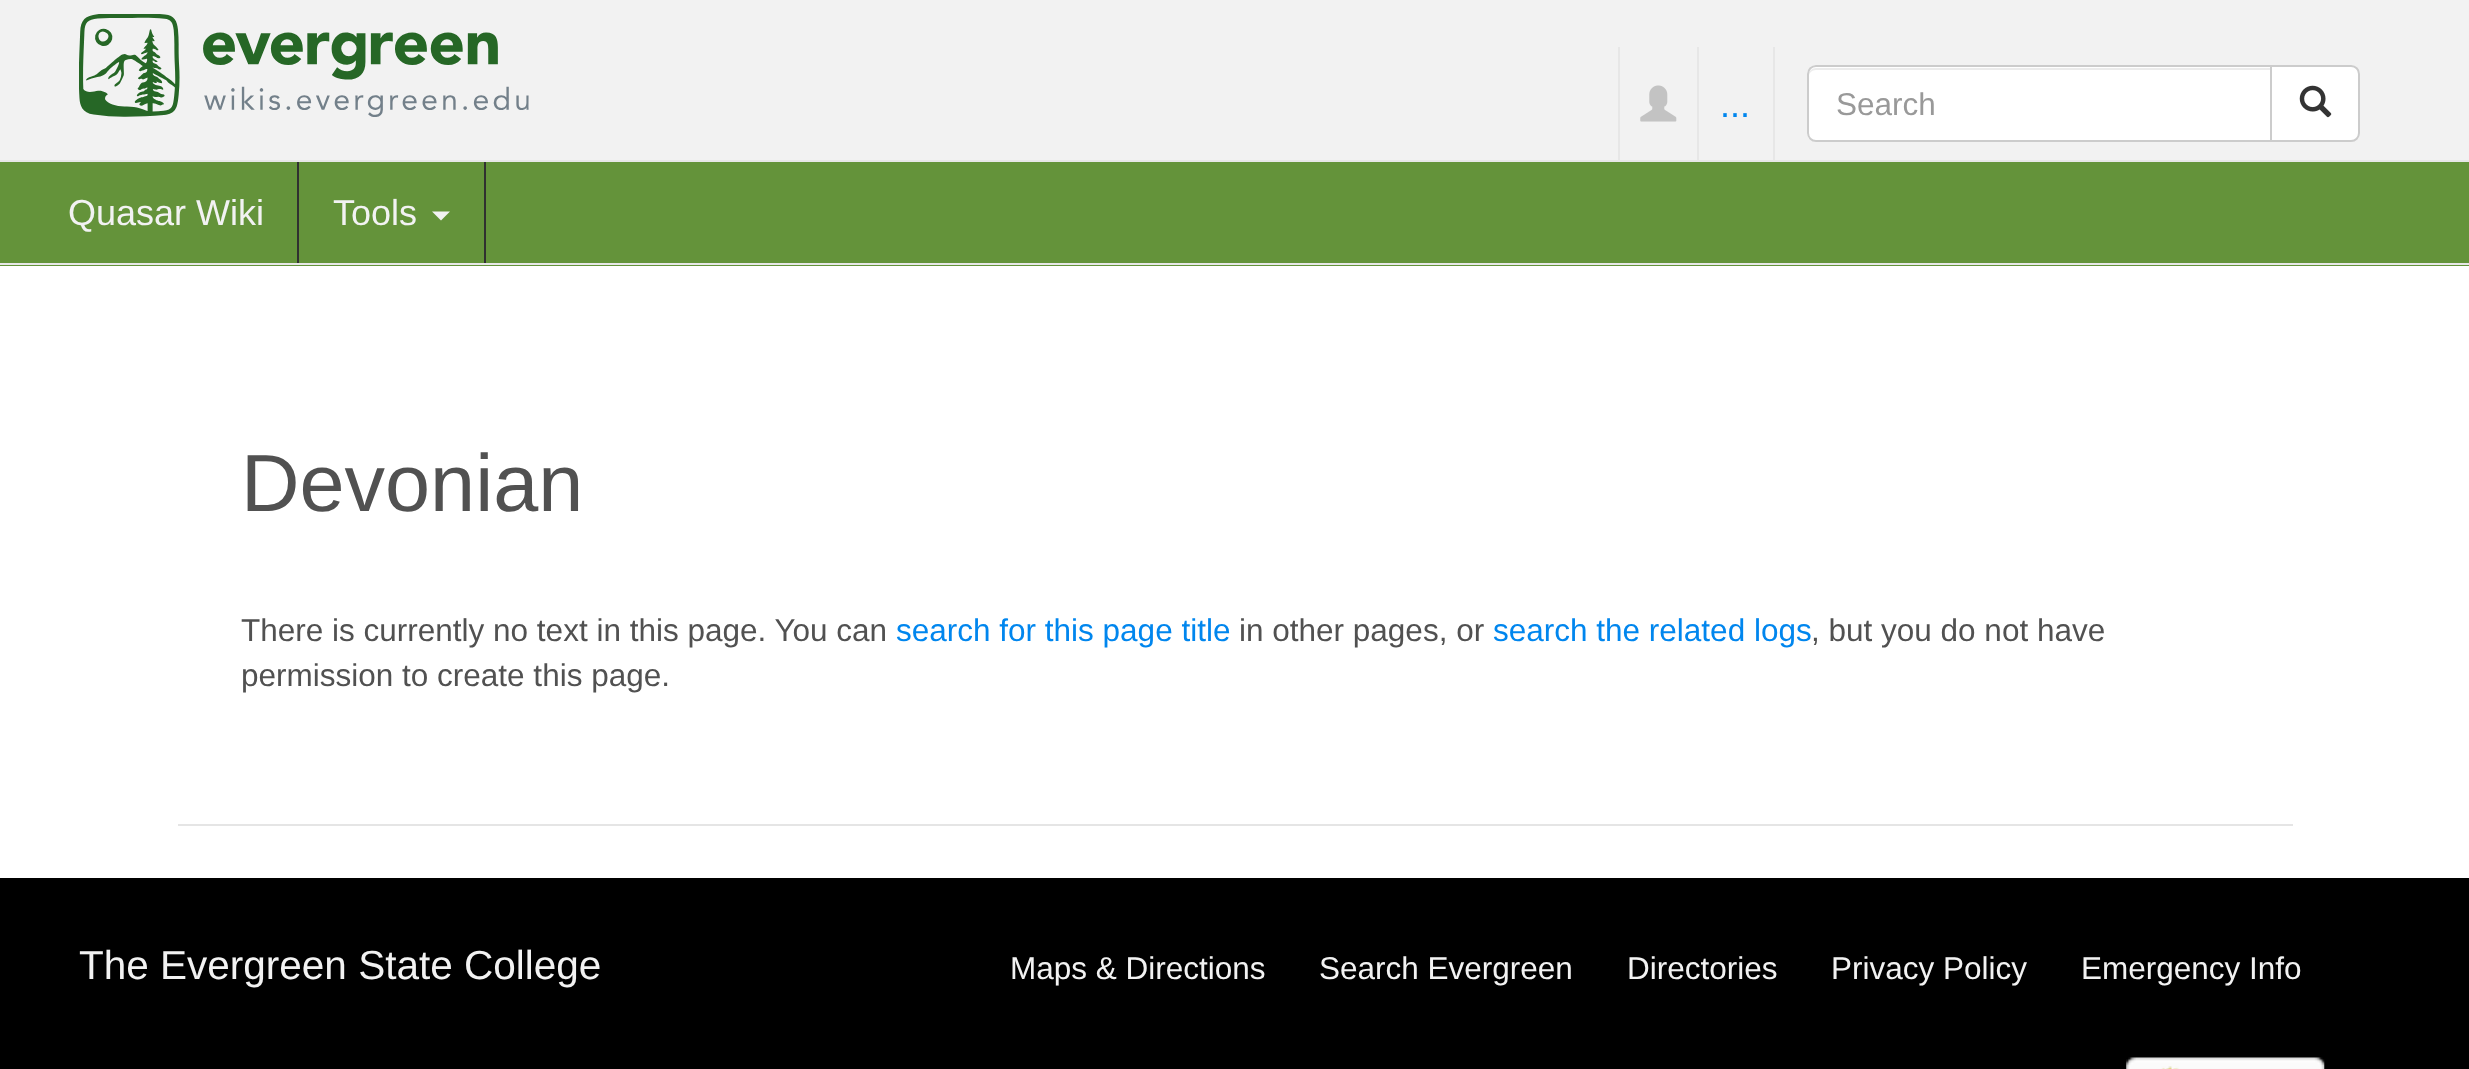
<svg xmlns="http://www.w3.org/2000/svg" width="2469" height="1069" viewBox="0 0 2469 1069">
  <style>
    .t1 { font: 36px Liberation Sans; fill: #0086ee; }
    .t2 { font: 31.5px Liberation Sans; fill: #999; }
    .t3 { font: 36px Liberation Sans; fill: #f2f2f2; }
    .t4 { font: 81px Liberation Sans; fill: #515151; }
    .t5 { font: 31.5px Liberation Sans; fill: #515151; }
    .t6 { font: 31.5px Liberation Sans; fill: #0086ee; }
    .t7 { font: 40.5px Liberation Sans; fill: #f2f2f2; }
    .t8 { font: 31.5px Liberation Sans; fill: #f2f2f2; }
  </style>
  <rect width="100%" height="100%" fill="#fff"/>
  <rect x="0" y="0" width="2469" height="160" fill="#f2f2f2"/>
  <image x="79" y="14" width="450" height="103" href="images/1.png"/>
  <rect x="1697" y="47" width="2" height="113" fill="#e7e7e7"/>
  <rect x="1618" y="47" width="2" height="113" fill="#e7e7e7"/>
  <image x="1640" y="85" width="37" height="37" href="images/2.png"/>
  <rect x="1773" y="47" width="2" height="113" fill="#e7e7e7"/>
  <text x="1720" y="117" class="t1">...</text>
  <path d="M1816 65H2273V142H1816C1811 142 1807 138 1807 133V74C1807 69 1811 65 1816 65Z" fill="#fff"/>
  <path d="M1816 70H2270V68H1816C1812 68 1809 71 1809 75V76C1809 73 1812 70 1816 70Z" fill="#ececec"/>
  <path d="M1816 66H2272V141H1816C1811.5 141 1808 137.5 1808 133V74C1808 69.5 1811.5 66 1816 66Z" fill="none" stroke="#ccc" stroke-width="2"/>
  <text x="1836" y="115" class="t2">Search</text>
  <path d="M2271 66H2351C2355.5 66 2359 69.5 2359 74V133C2359 137.5 2355.5 141 2351 141H2271Z" fill="#fff" stroke="#ccc" stroke-width="2"/>
  <image x="2299" y="85" width="33" height="33" href="images/3.png"/>
  <rect x="0" y="162" width="2469" height="104" fill="#64933a"/>
  <rect x="0" y="160" width="2469" height="2" fill="#e7e7e7"/>
  <rect x="0" y="263" width="2469" height="2" fill="#e7e7e7"/>
  <rect x="297" y="162" width="2" height="101" fill="#303030"/>
  <text x="68" y="225" class="t3">Quasar Wiki</text>
  <rect x="484" y="162" width="2" height="101" fill="#303030"/>
  <text x="333" y="225" class="t3">Tools</text>
  <path d="M432 211.5H450L441 220.5Z" fill="#f2f2f2"/>
  <text x="241" y="511" class="t4">Devonian</text>
  <text x="241" y="641" class="t5">There is currently no text in this page. You can</text>
  <text x="896" y="641" class="t6">search for this page title</text>
  <text x="1239" y="641" class="t5">in other pages, or</text>
  <text x="1493" y="641" class="t6">search the related logs</text>
  <text x="1811" y="641" class="t5">, but you do not have</text>
  <text x="241" y="686" class="t5">permission to create this page.</text>
  <rect x="178" y="824" width="2115" height="2" fill="#e5e5e5"/>
  <rect x="0" y="878" width="2469" height="191" fill="#000"/>
  <text x="79" y="979" class="t7">The Evergreen State College</text>
  <text x="1010" y="979" class="t8">Maps &amp; Directions</text>
  <text x="1319" y="979" class="t8">Search Evergreen</text>
  <text x="1627" y="979" class="t8">Directories</text>
  <text x="1831" y="979" class="t8">Privacy Policy</text>
  <text x="2081" y="979" class="t8">Emergency Info</text>
  <image x="2126" y="1057" width="199" height="12" href="images/4.png"/>
</svg>
